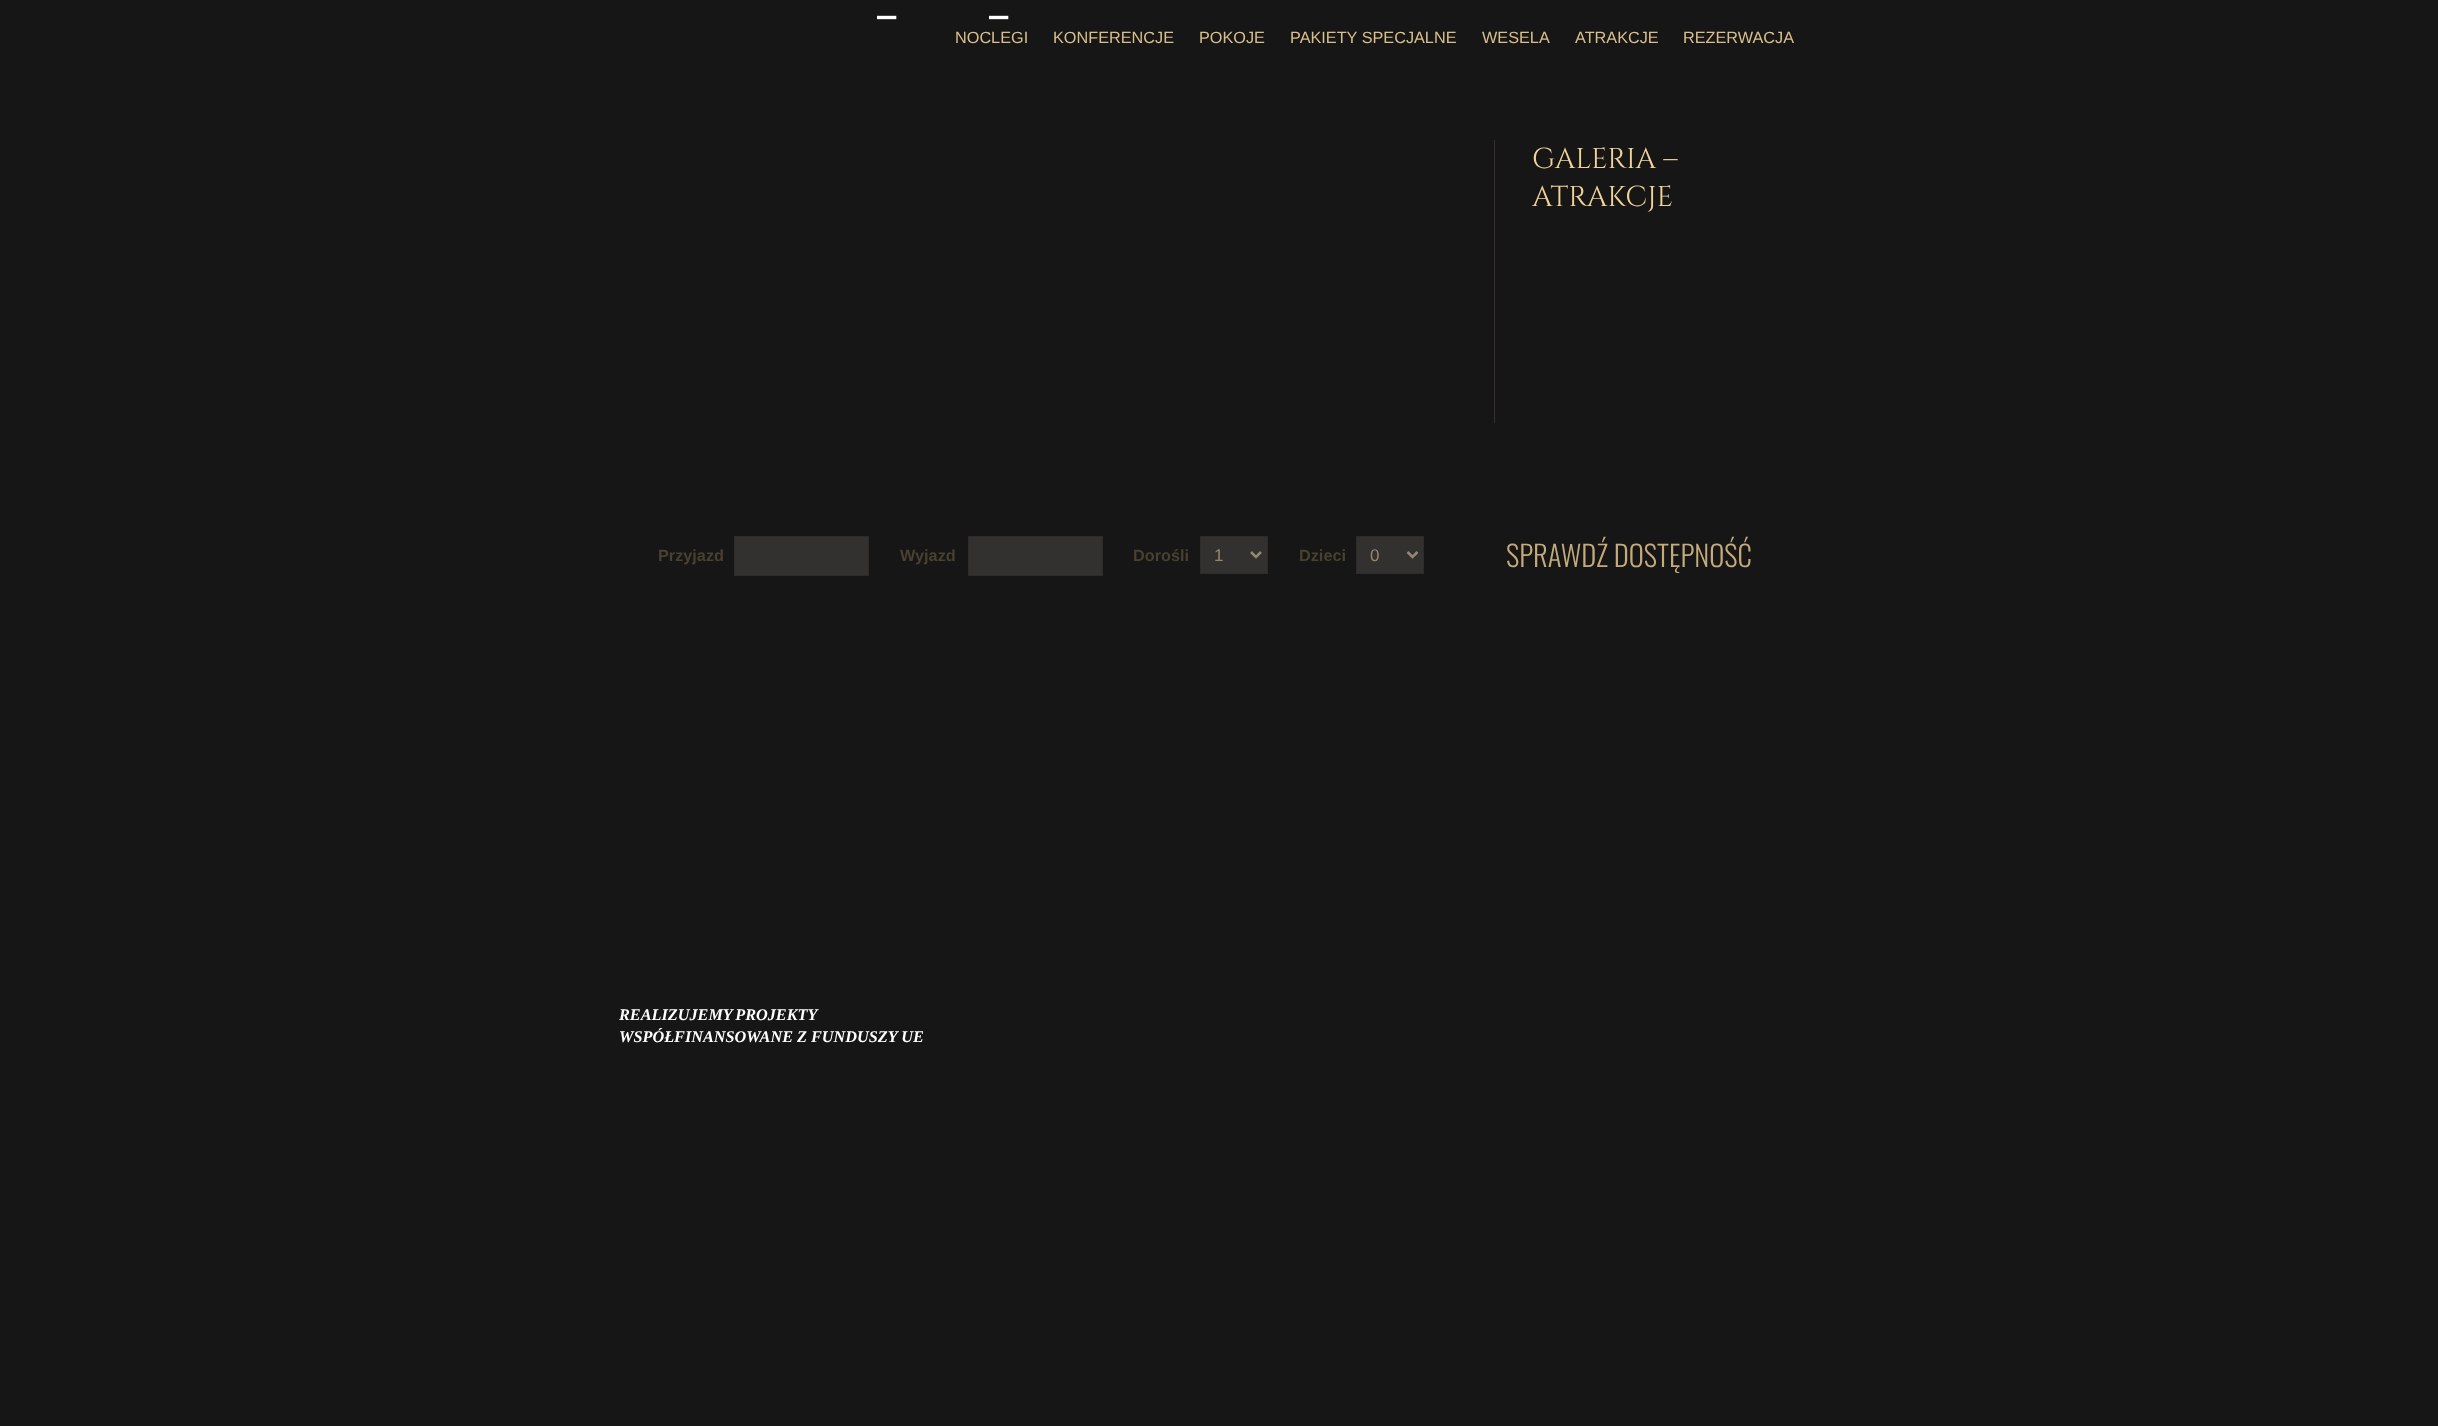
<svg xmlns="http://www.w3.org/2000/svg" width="2438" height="1426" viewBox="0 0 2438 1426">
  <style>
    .t1 { font: 300 58px Oswald; fill: #fff; }
    .t2 { font: 16.25px Liberation Sans; fill: #dabf8c; }
    .t3 { font: 28.75px Cinzel; fill: #f1d399; }
    .t4 { font: bold 16.25px Liberation Sans; fill: #494130; }
    .t5 { font: 17px Liberation Sans; fill: #93876e; }
    .t6 { font: 300 28.75px Oswald; fill: #c5ab7b; }
    .t7 { font: italic bold 16.25px Liberation Serif; fill: #fff; }
  </style>
  <rect width="100%" height="100%" fill="#161616"/>
  <text x="877" y="13" class="t1">_</text>
  <text x="989" y="13" class="t1">_</text>
  <text x="955" y="43" class="t2">NOCLEGI</text>
  <text x="1053" y="43" class="t2">KONFERENCJE</text>
  <text x="1199" y="43" class="t2">POKOJE</text>
  <text x="1290" y="43" class="t2">PAKIETY SPECJALNE</text>
  <text x="1482" y="43" class="t2">WESELA</text>
  <text x="1575" y="43" class="t2">ATRAKCJE</text>
  <text x="1683" y="43" class="t2">REZERWACJA</text>
  <rect x="1494" y="140" width="1" height="283" fill="#373229"/>
  <text x="1532" y="168" class="t3">GALERIA –</text>
  <text x="1532" y="206" class="t3">ATRAKCJE</text>
  <text x="658" y="561" class="t4">Przyjazd</text>
  <rect x="734.5" y="536.5" width="134" height="39" fill="#333130" stroke="#2d2c2b"/>
  <text x="900" y="561" class="t4">Wyjazd</text>
  <rect x="968.5" y="536.5" width="134" height="39" fill="#333130" stroke="#2d2c2b"/>
  <text x="1133" y="561" class="t4">Dorośli</text>
  <rect x="1200.5" y="536.5" width="67" height="37" fill="#333130" stroke="#2d2c2b"/>
  <path d="M1251 552L1256 557L1261 552" fill="none" stroke="#93876e" stroke-width="2.5"/>
  <text x="1214" y="561" class="t5">1</text>
  <text x="1299" y="561" class="t4">Dzieci</text>
  <rect x="1356.5" y="536.5" width="67" height="37" fill="#333130" stroke="#2d2c2b"/>
  <path d="M1407.5 552L1412.5 557L1417.5 552" fill="none" stroke="#93876e" stroke-width="2.5"/>
  <text x="1370" y="561" class="t5">0</text>
  <text x="1506" y="567" class="t6">SPRAWDŹ DOSTĘPNOŚĆ</text>
  <text x="619" y="1020" word-spacing="-1" class="t7">REALIZUJEMY PROJEKTY</text>
  <text x="619" y="1042" class="t7">WSPÓŁFINANSOWANE Z FUNDUSZY UE</text>
</svg>
